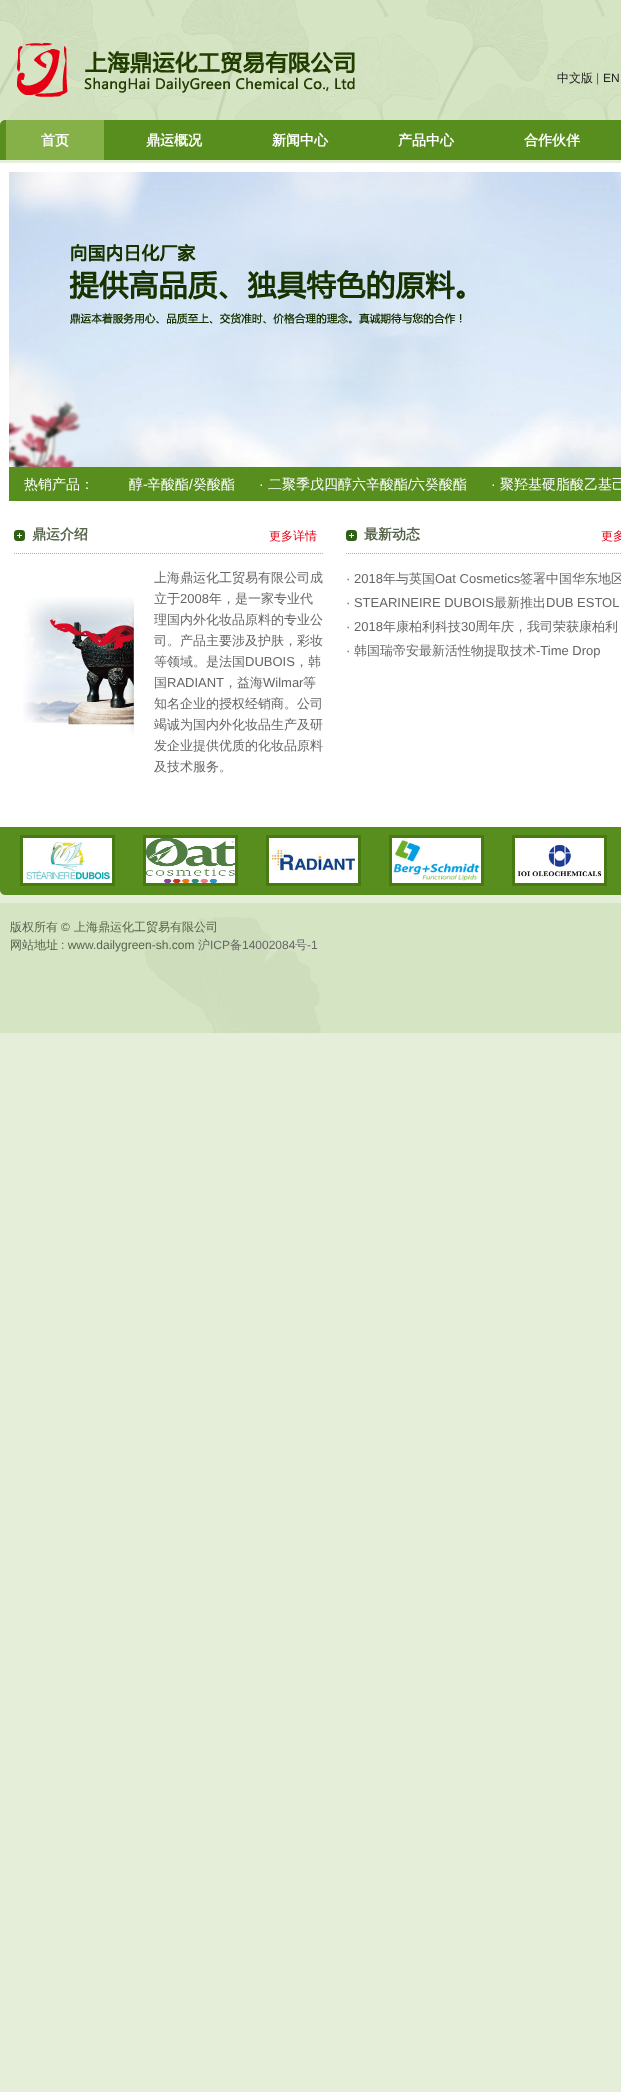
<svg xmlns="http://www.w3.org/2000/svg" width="621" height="2092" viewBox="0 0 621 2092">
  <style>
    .t1 { font: 500 12px WenQuanYi Zen Hei; fill: #222; }
    .t2 { font: 12px Liberation Sans; fill: #56644b; }
    .t3 { font: 12px Liberation Sans; fill: #222; }
    .t4 { font: bold 14px WenQuanYi Zen Hei; fill: #fff; }
    .t5 { font: 500 14px WenQuanYi Zen Hei; fill: #fff; }
    .t6 { font: 14px Liberation Sans; fill: #fff; }
    .t7 { font: bold 14px WenQuanYi Zen Hei; fill: #56644b; }
    .t8 { font: 500 12px WenQuanYi Zen Hei; fill: #e60013; }
    .t9 { font: 500 13px WenQuanYi Zen Hei; fill: #666; }
    .t10 { font: 13px Liberation Sans; fill: #666; }
    .t11 { font: 500 12px WenQuanYi Zen Hei; fill: #56644b; }
    .t12 { font: 500 12px WenQuanYi Zen Hei; fill: #666; }
    .t13 { font: 12px Liberation Sans; fill: #666; }
  </style>
  <rect width="100%" height="100%" fill="#e5eed9"/>
  <image x="0" y="0" width="621" height="120" href="images/1.png"/>
  <image x="17" y="43" width="338" height="54" href="images/2.png"/>
  <text x="557" y="82" class="t1">中文版</text>
  <text x="596" y="82" class="t2">|</text>
  <text x="603" y="82" class="t3">EN</text>
  <rect x="0" y="120" width="621" height="40" fill="#588e1e"/>
  <image x="0" y="120" width="5" height="5" href="images/3.png"/>
  <rect x="6" y="120" width="98" height="40" fill="#86b149"/>
  <text x="41" y="145" class="t4">首页</text>
  <text x="146" y="145" class="t4">鼎运概况</text>
  <text x="272" y="145" class="t4">新闻中心</text>
  <text x="398" y="145" class="t4">产品中心</text>
  <text x="524" y="145" class="t4">合作伙伴</text>
  <rect x="0" y="163" width="621" height="664" fill="#fff"/>
  <image x="9" y="172" width="612" height="295" href="images/4.png"/>
  <rect x="9" y="467" width="612" height="34" fill="#588e1e"/>
  <text x="24" y="489" class="t5">热销产品：</text>
  <text x="129" y="489" class="t5">醇</text>
  <text x="143" y="489" class="t6">-</text>
  <text x="147" y="489" class="t5">辛酸酯</text>
  <text x="189" y="489" class="t6">/</text>
  <text x="193" y="489" class="t5">癸酸酯</text>
  <text x="259" y="489" class="t6">·</text>
  <text x="268" y="489" class="t5">二聚季戊四醇六辛酸酯</text>
  <text x="408" y="489" class="t6">/</text>
  <text x="411" y="489" class="t5">六癸酸酯</text>
  <text x="491" y="489" class="t6">·</text>
  <text x="500" y="489" class="t5">聚羟基硬脂酸乙基己</text>
  <image x="14" y="553" width="309" height="1" href="images/5.png"/>
  <image x="14" y="530" width="11" height="11" href="images/6.png"/>
  <text x="32" y="539" class="t7">鼎运介绍</text>
  <text x="269" y="540" class="t8">更多详情</text>
  <image x="23" y="597" width="111" height="137" href="images/7.png"/>
  <text x="154" y="582" class="t9">上海鼎运化工贸易有限公司成</text>
  <text x="154" y="603" class="t9">立于</text>
  <text x="180" y="603" class="t10">2008</text>
  <text x="209" y="603" class="t9">年，是一家专业代</text>
  <text x="154" y="624" class="t9">理国内外化妆品原料的专业公</text>
  <text x="154" y="645" class="t9">司。产品主要涉及护肤，彩妆</text>
  <text x="154" y="666" class="t9">等领域。是法国</text>
  <text x="245" y="666" class="t10">DUBOIS</text>
  <text x="295" y="666" class="t9">，韩</text>
  <text x="154" y="687" class="t9">国</text>
  <text x="167" y="687" class="t10">RADIANT</text>
  <text x="224" y="687" class="t9">，益海</text>
  <text x="263" y="687" class="t10">Wilmar</text>
  <text x="303" y="687" class="t9">等</text>
  <text x="154" y="708" class="t9">知名企业的授权经销商。公司</text>
  <text x="154" y="729" class="t9">竭诚为国内外化妆品生产及研</text>
  <text x="154" y="750" class="t9">发企业提供优质的化妆品原料</text>
  <text x="154" y="771" class="t9">及技术服务。</text>
  <image x="346" y="553" width="275" height="1" href="images/8.png"/>
  <image x="346" y="530" width="11" height="11" href="images/6.png"/>
  <text x="364" y="539" class="t7">最新动态</text>
  <text x="601" y="540" class="t8">更多</text>
  <text x="346" y="583" class="t10">· 2018</text>
  <text x="383" y="583" class="t9">年与英国</text>
  <text x="435" y="583" class="t10">Oat Cosmetics</text>
  <text x="520" y="583" class="t9">签署中国华东地区</text>
  <text x="346" y="607" class="t10">· STEARINEIRE DUBOIS</text>
  <text x="494" y="607" class="t9">最新推出</text>
  <text x="546" y="607" class="t10">DUB ESTOL</text>
  <text x="346" y="631" class="t10">· 2018</text>
  <text x="383" y="631" class="t9">年康柏利科技</text>
  <text x="461" y="631" class="t10">30</text>
  <text x="475" y="631" class="t9">周年庆，我司荣获康柏利</text>
  <text x="346" y="655" class="t10">·</text>
  <text x="354" y="655" class="t9">韩国瑞帝安最新活性物提取技术</text>
  <text x="536" y="655" class="t10">-Time Drop</text>
  <image x="0" y="827" width="6" height="68" href="images/9.png"/>
  <rect x="6" y="827" width="615" height="68" fill="#588e1e"/>
  <rect x="21.5" y="836.5" width="92" height="48" fill="none" stroke="#487a13" stroke-width="3"/>
  <image x="23" y="838" width="89" height="45" href="images/10.png"/>
  <rect x="144.5" y="836.5" width="92" height="48" fill="none" stroke="#487a13" stroke-width="3"/>
  <image x="146" y="838" width="89" height="45" href="images/11.png"/>
  <rect x="267.5" y="836.5" width="92" height="48" fill="none" stroke="#487a13" stroke-width="3"/>
  <image x="269" y="838" width="89" height="45" href="images/12.png"/>
  <rect x="390.5" y="836.5" width="92" height="48" fill="none" stroke="#487a13" stroke-width="3"/>
  <image x="392" y="838" width="89" height="45" href="images/13.png"/>
  <rect x="513.5" y="836.5" width="92" height="48" fill="none" stroke="#487a13" stroke-width="3"/>
  <image x="515" y="838" width="89" height="45" href="images/14.png"/>
  <rect x="0" y="903" width="621" height="130" fill="#d5e4c3"/>
  <image x="144" y="917" width="177" height="116" href="images/15.png"/>
  <text x="10" y="931" class="t11">版权所有</text>
  <text x="61" y="931" class="t2">©</text>
  <text x="74" y="931" class="t11">上海鼎运化工贸易有限公司</text>
  <text x="10" y="949" class="t11">网站地址</text>
  <text x="61" y="949" class="t2">: www.dailygreen-sh.com</text>
  <text x="198" y="949" class="t12">沪</text>
  <text x="210" y="949" class="t13">ICP</text>
  <text x="230" y="949" class="t12">备</text>
  <text x="242" y="949" class="t13">14002084</text>
  <text x="295" y="949" class="t12">号</text>
  <text x="307" y="949" class="t13">-1</text>
</svg>
